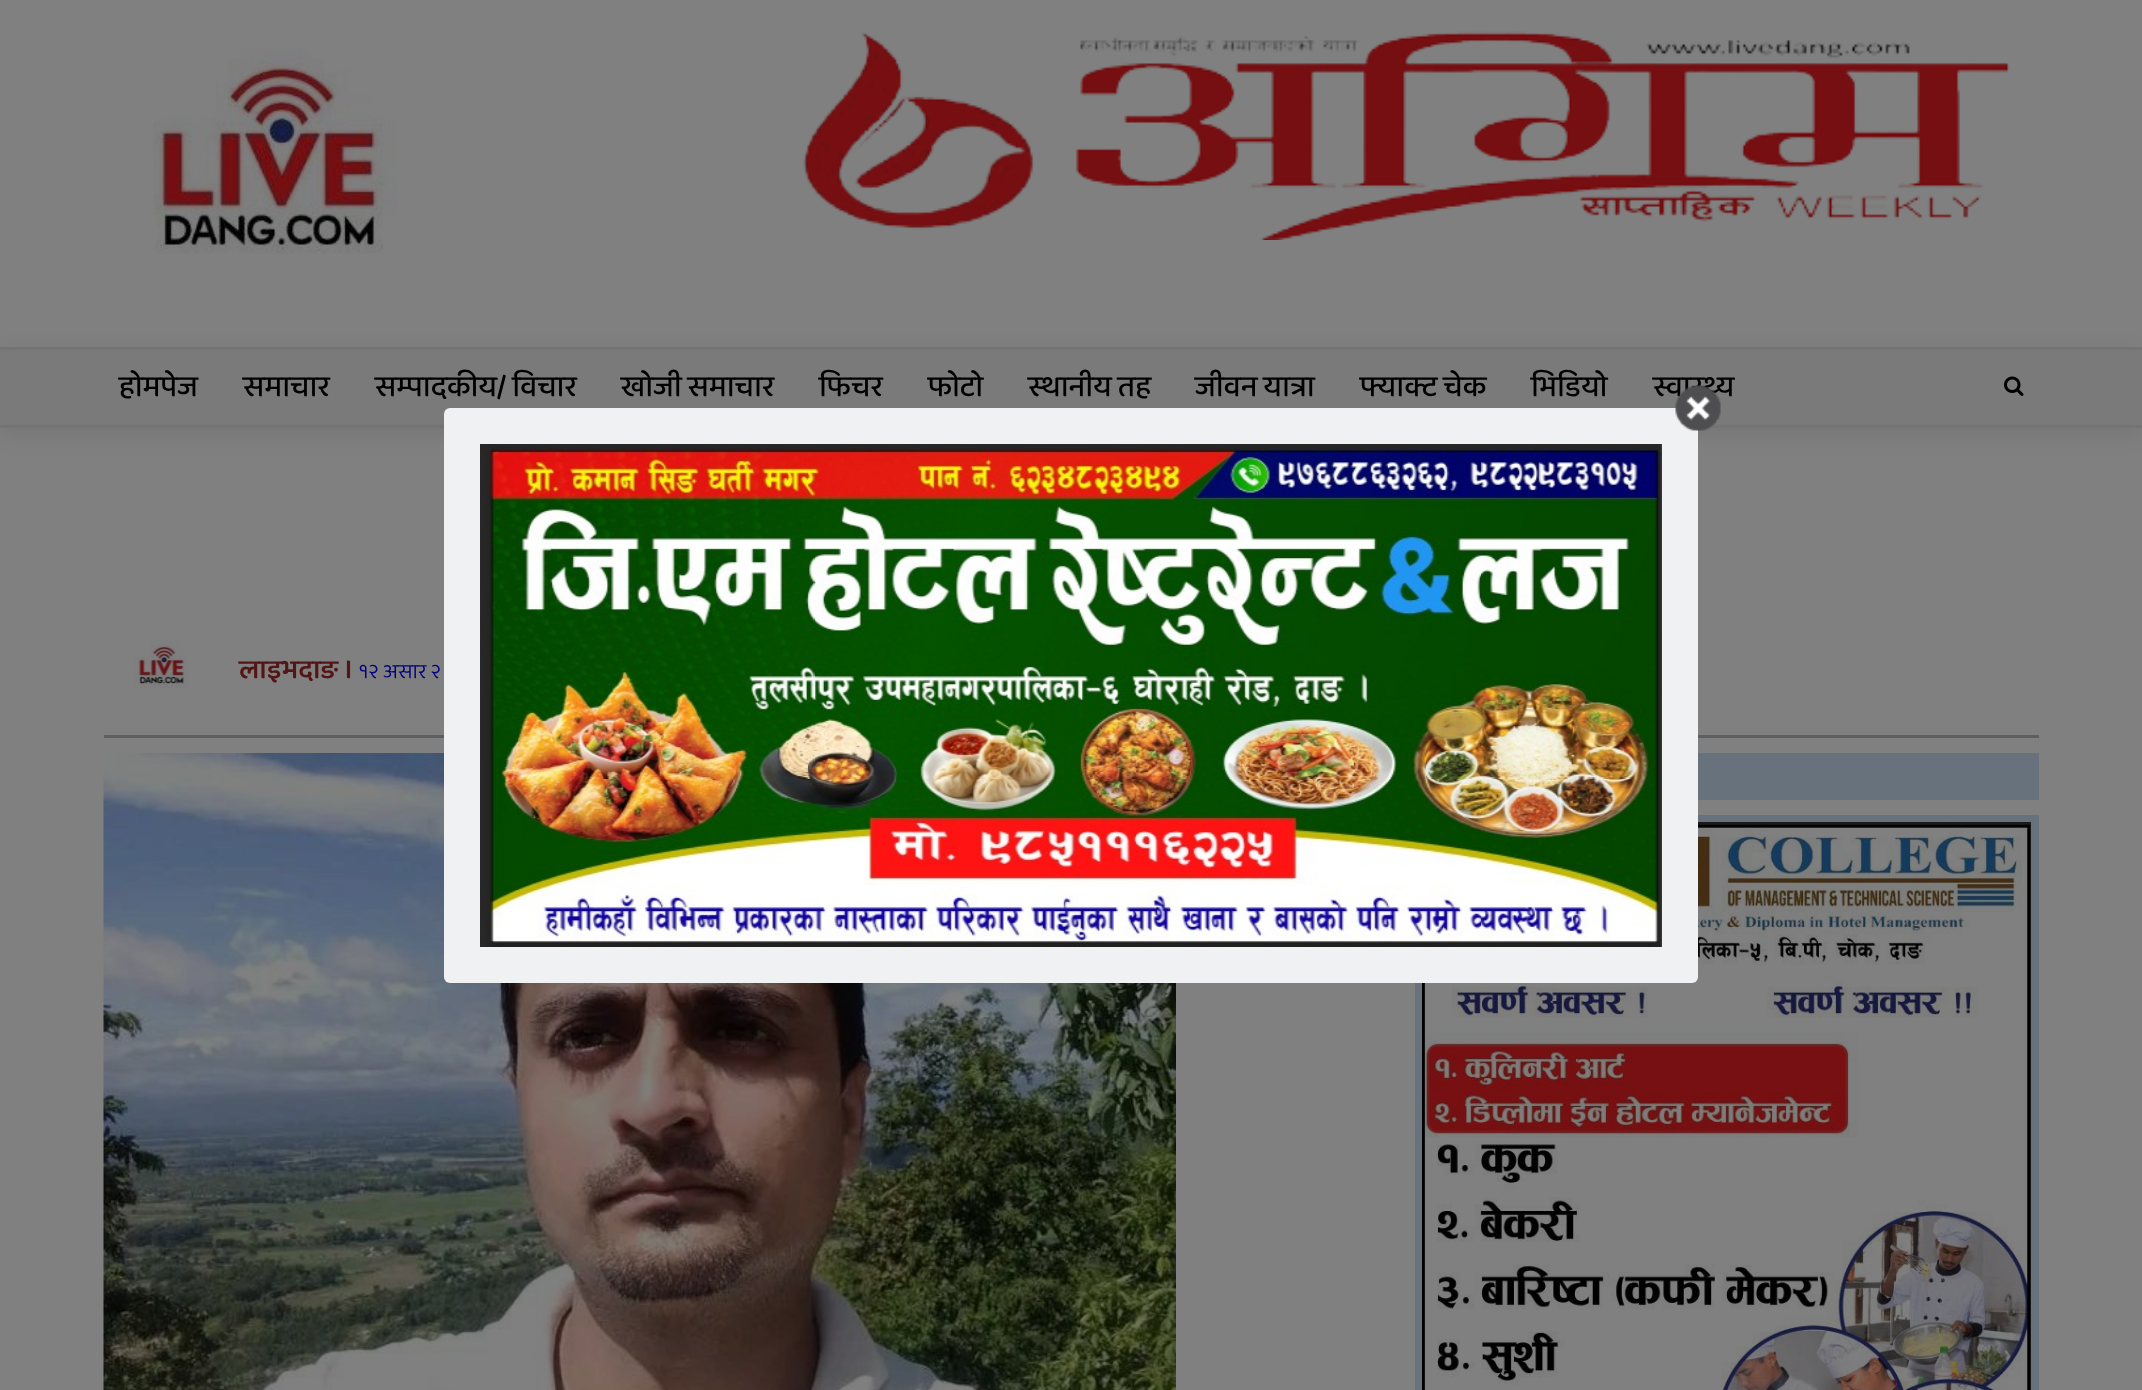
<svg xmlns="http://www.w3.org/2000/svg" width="2142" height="1390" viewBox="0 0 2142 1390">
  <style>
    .t1 { font: 500 30px 'Baloo 2'; fill: #000; }
    .t2 { font: 600 27px 'Baloo 2'; fill: #531515; }
    .t3 { font: 21px 'Baloo 2'; fill: #000080; }
  </style>
  <rect width="100%" height="100%" fill="#808080"/>
  <image x="153" y="47" width="244" height="207" href="images/1.png"/>
  <image x="803" y="31" width="1207" height="209" href="images/2.png"/>
  <rect x="0" y="354" width="2142" height="81" fill="#00000014" filter="blur(11px)"/>
  <rect x="0" y="350" width="2142" height="74" fill="#7a7a7a"/>
  <rect x="0" y="347" width="2142" height="3" fill="#747474"/>
  <rect x="0" y="425" width="2142" height="3" fill="#747474"/>
  <text x="119" y="396" class="t1">होमपेज</text>
  <text x="243" y="396" class="t1">समाचार</text>
  <text x="375" y="396" class="t1">सम्पादकीय/ विचार</text>
  <text x="621" y="396" class="t1">खोजी समाचार</text>
  <text x="819" y="396" class="t1">फिचर</text>
  <text x="928" y="396" class="t1">फोटो</text>
  <text x="1028" y="396" class="t1">स्थानीय तह</text>
  <text x="1195" y="396" class="t1">जीवन यात्रा</text>
  <text x="1360" y="396" class="t1">फ्याक्ट चेक</text>
  <text x="1531" y="396" class="t1">भिडियो</text>
  <text x="1653" y="396" class="t1">स्वास्थ्य</text>
  <image x="2004" y="376" width="20" height="20" href="images/3.png"/>
  <rect x="104" y="735" width="1935" height="3" fill="#5d6063"/>
  <image x="134" y="640" width="55" height="48" href="images/4.png"/>
  <text x="239" y="678" class="t2">लाइभदाङ ।</text>
  <text x="359" y="678" class="t3">१२ असार २</text>
  <image x="103" y="753" width="1073" height="637" href="images/5.png"/>
  <rect x="1698" y="753" width="341" height="47" fill="#68727c"/>
  <rect x="1415" y="815" width="624" height="575" fill="#68727c"/>
  <image x="1422" y="822" width="609" height="568" href="images/6.png"/>
  <rect x="444" y="408" width="1254" height="575" rx="6" fill="#f0f1f2"/>
  <image x="1675" y="385" width="46" height="46" href="images/7.png"/>
  <image x="480" y="444" width="1182" height="503" href="images/8.png"/>
</svg>
